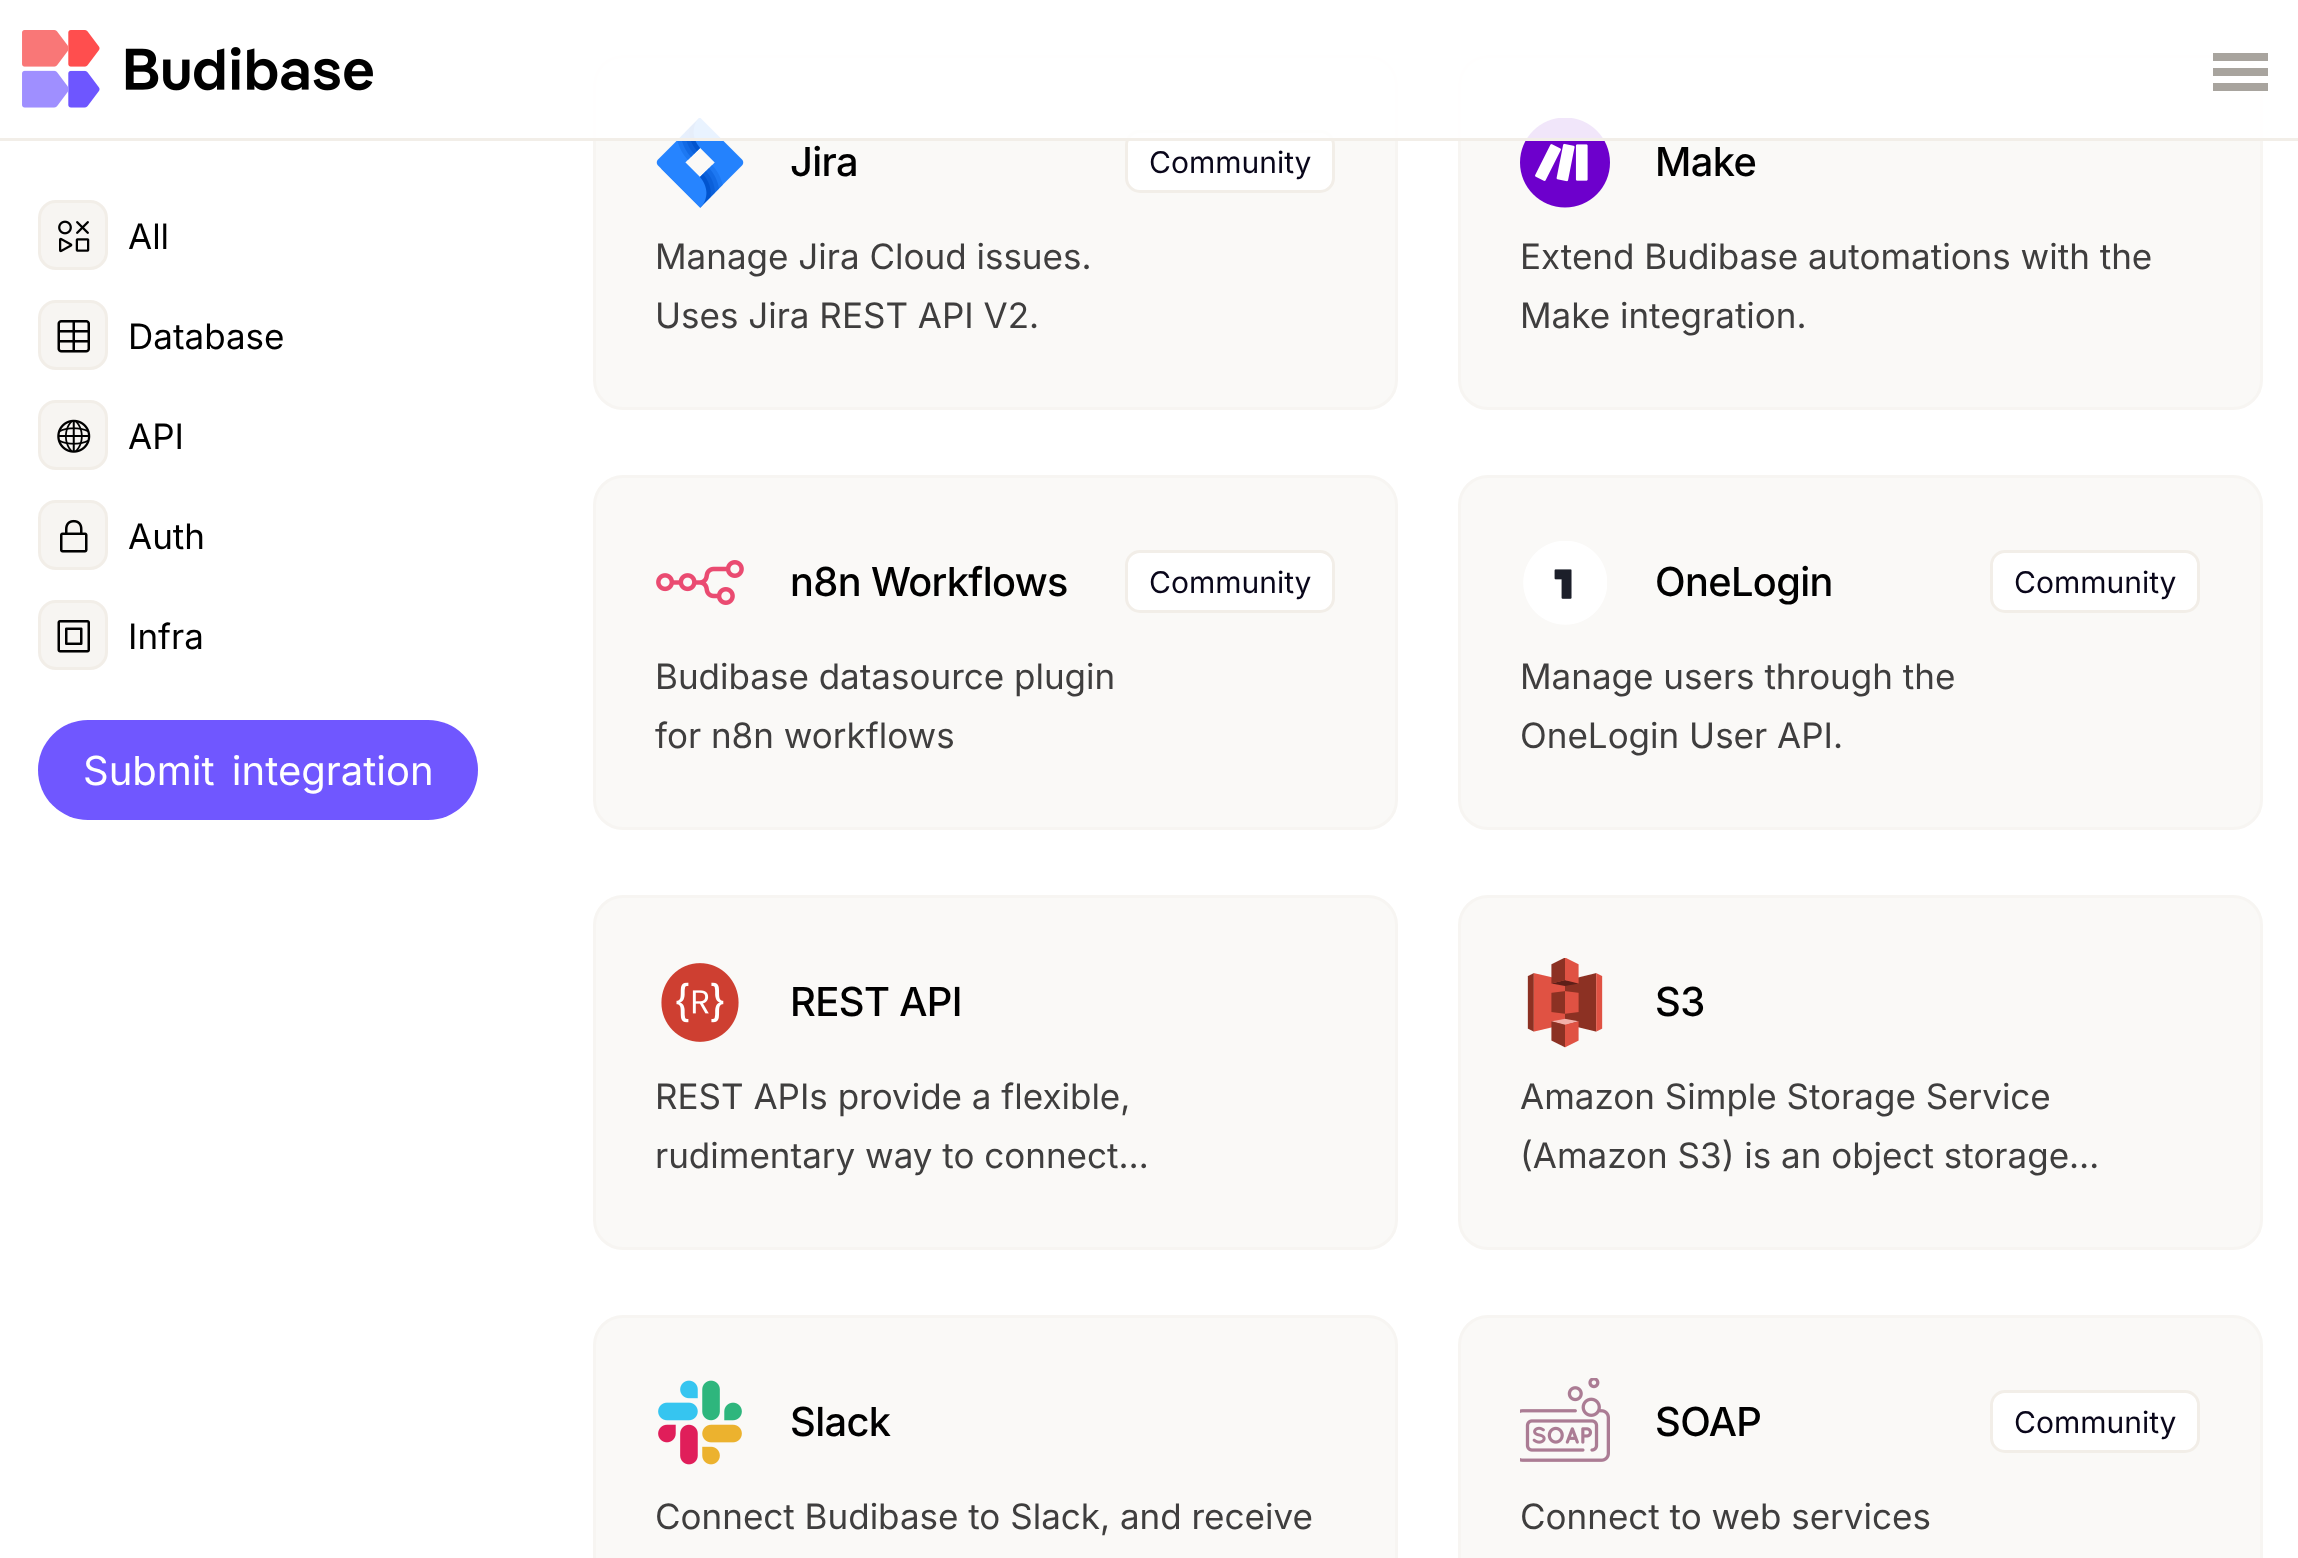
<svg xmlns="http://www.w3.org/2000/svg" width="2298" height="1558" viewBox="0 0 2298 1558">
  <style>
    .t1 { font: 35px Inter; fill: #000; }
    .t2 { font: 40px Inter; fill: #fff; }
    .t3 { font: 500 40px Inter; letter-spacing: -0.6px; fill: #000; }
    .t4 { font: 30px Inter; fill: #09061a; }
    .t5 { font: 35px Inter; fill: #3f3e3e; }
  </style>
  <rect width="100%" height="100%" fill="#fff"/>
  <rect x="594.5" y="56.5" width="802" height="352" rx="28.5" fill="#faf9f7" stroke="#f7f5f2" stroke-width="3"/>
  <image x="656" y="118" width="88" height="90" href="images/7.png"/>
  <rect x="1126.5" y="131.5" width="207" height="60" rx="13.5" fill="#fff" stroke="#f2eee8" stroke-width="3"/>
  <rect x="1459.5" y="56.5" width="802" height="352" rx="28.5" fill="#faf9f7" stroke="#f7f5f2" stroke-width="3"/>
  <image x="1520" y="118" width="90" height="90" href="images/8.png"/>
  <rect x="593" y="55" width="1670" height="83" fill="#ffffffe6"/>
  <rect x="0" y="138" width="2298" height="3" fill="#f2eee8"/>
  <image x="22" y="30" width="351" height="78" href="images/1.png"/>
  <rect x="2213" y="53" width="55" height="8" fill="#a8a49e"/>
  <rect x="2213" y="68" width="55" height="8" fill="#a8a49e"/>
  <rect x="2213" y="83" width="55" height="8" fill="#a8a49e"/>
  <rect x="39.5" y="201.5" width="67" height="67" rx="16.5" fill="#f7f5f2" stroke="#f2eee8" stroke-width="3"/>
  <image x="58" y="220" width="32" height="33" href="images/2.png"/>
  <text x="128" y="249" class="t1">All</text>
  <rect x="39.5" y="301.5" width="67" height="67" rx="16.5" fill="#f7f5f2" stroke="#f2eee8" stroke-width="3"/>
  <image x="57" y="320" width="33" height="33" href="images/3.png"/>
  <text x="128" y="349" class="t1">Database</text>
  <rect x="39.5" y="401.5" width="67" height="67" rx="16.5" fill="#f7f5f2" stroke="#f2eee8" stroke-width="3"/>
  <image x="57" y="419" width="34" height="34" href="images/4.png"/>
  <text x="128" y="449" class="t1">API</text>
  <rect x="39.5" y="501.5" width="67" height="67" rx="16.5" fill="#f7f5f2" stroke="#f2eee8" stroke-width="3"/>
  <image x="60" y="519" width="28" height="34" href="images/5.png"/>
  <text x="128" y="549" class="t1">Auth</text>
  <rect x="39.5" y="601.5" width="67" height="67" rx="16.5" fill="#f7f5f2" stroke="#f2eee8" stroke-width="3"/>
  <image x="57" y="620" width="33" height="33" href="images/6.png"/>
  <text x="128" y="649" class="t1">Infra</text>
  <rect x="38" y="720" width="440" height="100" rx="50" fill="#7057ff"/>
  <text x="83" y="785" word-spacing="6" class="t2">Submit integration</text>
  <text x="790" y="176" class="t3">Jira</text>
  <text x="1149" y="173" class="t4">Community</text>
  <text x="655" y="269" class="t5">Manage Jira Cloud issues.</text>
  <text x="655" y="328" class="t5">Uses Jira REST API V2.</text>
  <text x="1655" y="176" class="t3">Make</text>
  <text x="1520" y="269" class="t5">Extend Budibase automations with the</text>
  <text x="1520" y="328" class="t5">Make integration.</text>
  <rect x="594.5" y="476.5" width="802" height="352" rx="28.5" fill="#faf9f7" stroke="#f7f5f2" stroke-width="3"/>
  <image x="656" y="560" width="88" height="45" href="images/9.png"/>
  <text x="790" y="596" class="t3">n8n Workflows</text>
  <rect x="1126.5" y="551.5" width="207" height="60" rx="13.5" fill="#fff" stroke="#f2eee8" stroke-width="3"/>
  <text x="1149" y="593" class="t4">Community</text>
  <text x="655" y="689" class="t5">Budibase datasource plugin</text>
  <text x="655" y="748" class="t5">for n8n workflows</text>
  <rect x="1459.5" y="476.5" width="802" height="352" rx="28.5" fill="#faf9f7" stroke="#f7f5f2" stroke-width="3"/>
  <image x="1523" y="541" width="84" height="84" href="images/10.png"/>
  <text x="1655" y="596" class="t3">OneLogin</text>
  <rect x="1991.5" y="551.5" width="207" height="60" rx="13.5" fill="#fff" stroke="#f2eee8" stroke-width="3"/>
  <text x="2014" y="593" class="t4">Community</text>
  <text x="1520" y="689" class="t5">Manage users through the</text>
  <text x="1520" y="748" class="t5">OneLogin User API.</text>
  <rect x="594.5" y="896.5" width="802" height="352" rx="28.5" fill="#faf9f7" stroke="#f7f5f2" stroke-width="3"/>
  <image x="661" y="963" width="78" height="79" href="images/11.png"/>
  <text x="790" y="1016" class="t3">REST API</text>
  <text x="655" y="1109" class="t5">REST APIs provide a flexible,</text>
  <text x="655" y="1168" class="t5">rudimentary way to connect…</text>
  <rect x="1459.5" y="896.5" width="802" height="352" rx="28.5" fill="#faf9f7" stroke="#f7f5f2" stroke-width="3"/>
  <image x="1527" y="958" width="76" height="90" href="images/12.png"/>
  <text x="1655" y="1016" class="t3">S3</text>
  <text x="1520" y="1109" class="t5">Amazon Simple Storage Service</text>
  <text x="1520" y="1168" class="t5">(Amazon S3) is an object storage…</text>
  <rect x="594.5" y="1316.5" width="802" height="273" rx="28.5" fill="#faf9f7" stroke="#f7f5f2" stroke-width="3"/>
  <image x="658" y="1380" width="84" height="85" href="images/13.png"/>
  <text x="790" y="1436" class="t3">Slack</text>
  <text x="655" y="1529" class="t5">Connect Budibase to Slack, and receive</text>
  <rect x="1459.5" y="1316.5" width="802" height="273" rx="28.5" fill="#faf9f7" stroke="#f7f5f2" stroke-width="3"/>
  <image x="1520" y="1378" width="90" height="84" href="images/14.png"/>
  <text x="1655" y="1436" class="t3">SOAP</text>
  <rect x="1991.5" y="1391.5" width="207" height="60" rx="13.5" fill="#fff" stroke="#f2eee8" stroke-width="3"/>
  <text x="2014" y="1433" class="t4">Community</text>
  <text x="1520" y="1529" class="t5">Connect to web services</text>
</svg>
